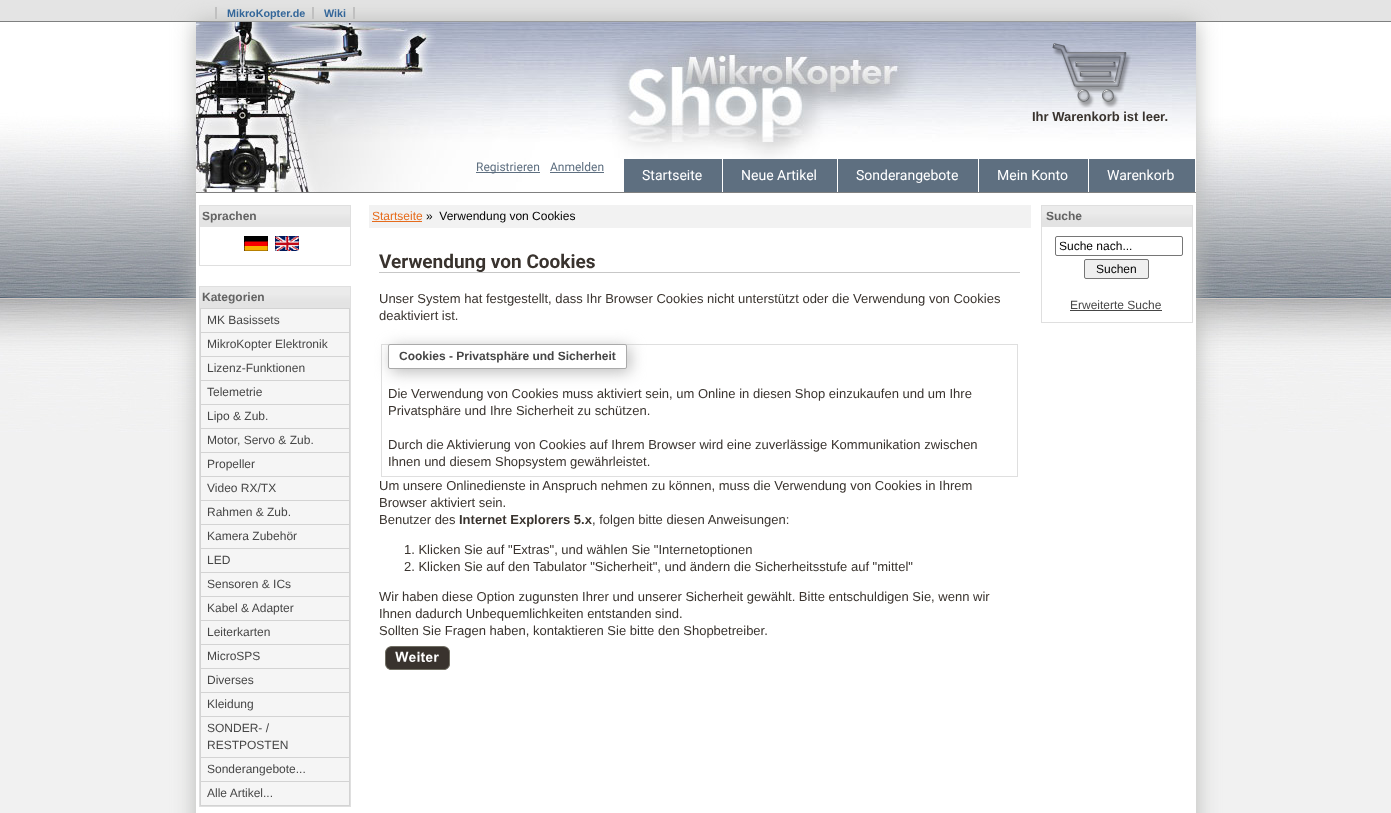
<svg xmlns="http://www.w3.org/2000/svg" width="1391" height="813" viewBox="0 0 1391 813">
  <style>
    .t1 { font: bold 10.75px Liberation Sans; fill: #369; }
    .t2 { font: bold 13px Liberation Sans; fill: #39332e; }
    .t3 { font: 12px Roboto; fill: #5e6f80; }
    .t4 { font: 14px Roboto; fill: #fff; }
    .t5 { font: bold 12px Liberation Sans; fill: #636363; }
    .t6 { font: 12px Liberation Sans; fill: #464646; }
    .t7 { font: 12px Liberation Sans; fill: #e66b1b; }
    .t8 { font: 12px Liberation Sans; fill: #000; }
    .t9 { font: bold 19px Roboto; fill: #39332e; }
    .t10 { font: 13px Liberation Sans; fill: #39332e; }
    .t11 { font: bold 12px Liberation Sans; fill: #464646; }
  </style>
  <rect width="100%" height="100%" fill="#f1f1f1"/>
  <image x="0" y="22" width="1391" height="410" href="images/1.png"/>
  <rect x="0" y="0" width="1391" height="21" fill="#e4e4e4"/>
  <rect x="0" y="21" width="1391" height="1" fill="#7f8080"/>
  <rect x="196" y="22" width="1000" height="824" fill="#b8b9b6" filter="blur(11px)"/>
  <rect x="215" y="7" width="2" height="12" fill="#c0c0c0"/>
  <text x="227" y="17" class="t1">MikroKopter.de</text>
  <rect x="312" y="7" width="2" height="12" fill="#c0c0c0"/>
  <text x="324" y="17" class="t1">Wiki</text>
  <rect x="353" y="7" width="2" height="12" fill="#c0c0c0"/>
  <rect x="196" y="193" width="1000" height="620" fill="#fff"/>
  <rect x="196" y="192" width="1000" height="1" fill="#808080"/>
  <image x="196" y="22" width="1000" height="170" href="images/2.png"/>
  <image x="1052" y="43" width="79" height="65" href="images/3.png"/>
  <text x="1032" y="121" class="t2">Ihr Warenkorb ist leer.</text>
  <rect x="476" y="172" width="64" height="1" fill="#5e6f80"/>
  <text x="476" y="171" class="t3">Registrieren</text>
  <text x="550" y="171" class="t3">Anmelden</text>
  <rect x="550" y="172" width="54" height="1" fill="#5e6f80"/>
  <rect x="624" y="159" width="98" height="33" fill="#5e6f80"/>
  <text x="642" y="180" class="t4">Startseite</text>
  <rect x="723" y="159" width="114" height="33" fill="#5e6f80"/>
  <text x="741" y="180" class="t4">Neue Artikel</text>
  <rect x="838" y="159" width="140" height="33" fill="#5e6f80"/>
  <text x="856" y="180" class="t4">Sonderangebote</text>
  <rect x="979" y="159" width="109" height="33" fill="#5e6f80"/>
  <text x="997" y="180" class="t4">Mein Konto</text>
  <rect x="1089" y="159" width="106" height="33" fill="#5e6f80"/>
  <text x="1107" y="180" class="t4">Warenkorb</text>
  <rect x="199.5" y="205.5" width="151" height="60" fill="none" stroke="#dfdfdf"/>
  <image x="200" y="206" width="150" height="21" href="images/4.png"/>
  <text x="202" y="220" class="t5">Sprachen</text>
  <image x="244" y="236" width="24" height="15" href="images/5.png"/>
  <image x="275" y="236" width="24" height="15" href="images/6.png"/>
  <rect x="199.5" y="286.5" width="151" height="520" fill="none" stroke="#dfdfdf"/>
  <image x="200" y="287" width="150" height="21" href="images/4.png"/>
  <text x="202" y="301" class="t5">Kategorien</text>
  <rect x="200" y="308" width="150" height="1" fill="#d3d3d3"/>
  <rect x="349" y="308" width="1" height="498" fill="#d3d3d3"/>
  <rect x="200" y="308" width="1" height="498" fill="#d3d3d3"/>
  <rect x="201" y="332" width="148" height="1" fill="#d3d3d3"/>
  <rect x="201" y="309" width="148" height="23" fill="#f5f5f5"/>
  <text x="207" y="324" class="t6">MK Basissets</text>
  <rect x="201" y="356" width="148" height="1" fill="#d3d3d3"/>
  <rect x="201" y="333" width="148" height="23" fill="#f5f5f5"/>
  <text x="207" y="348" class="t6">MikroKopter Elektronik</text>
  <rect x="201" y="380" width="148" height="1" fill="#d3d3d3"/>
  <rect x="201" y="357" width="148" height="23" fill="#f5f5f5"/>
  <text x="207" y="372" class="t6">Lizenz-Funktionen</text>
  <rect x="201" y="404" width="148" height="1" fill="#d3d3d3"/>
  <rect x="201" y="381" width="148" height="23" fill="#f5f5f5"/>
  <text x="207" y="396" class="t6">Telemetrie</text>
  <rect x="201" y="428" width="148" height="1" fill="#d3d3d3"/>
  <rect x="201" y="405" width="148" height="23" fill="#f5f5f5"/>
  <text x="207" y="420" class="t6">Lipo &amp; Zub.</text>
  <rect x="201" y="452" width="148" height="1" fill="#d3d3d3"/>
  <rect x="201" y="429" width="148" height="23" fill="#f5f5f5"/>
  <text x="207" y="444" class="t6">Motor, Servo &amp; Zub.</text>
  <rect x="201" y="476" width="148" height="1" fill="#d3d3d3"/>
  <rect x="201" y="453" width="148" height="23" fill="#f5f5f5"/>
  <text x="207" y="468" class="t6">Propeller</text>
  <rect x="201" y="500" width="148" height="1" fill="#d3d3d3"/>
  <rect x="201" y="477" width="148" height="23" fill="#f5f5f5"/>
  <text x="207" y="492" class="t6">Video RX/TX</text>
  <rect x="201" y="524" width="148" height="1" fill="#d3d3d3"/>
  <rect x="201" y="501" width="148" height="23" fill="#f5f5f5"/>
  <text x="207" y="516" class="t6">Rahmen &amp; Zub.</text>
  <rect x="201" y="548" width="148" height="1" fill="#d3d3d3"/>
  <rect x="201" y="525" width="148" height="23" fill="#f5f5f5"/>
  <text x="207" y="540" class="t6">Kamera Zubehör</text>
  <rect x="201" y="572" width="148" height="1" fill="#d3d3d3"/>
  <rect x="201" y="549" width="148" height="23" fill="#f5f5f5"/>
  <text x="207" y="564" class="t6">LED</text>
  <rect x="201" y="596" width="148" height="1" fill="#d3d3d3"/>
  <rect x="201" y="573" width="148" height="23" fill="#f5f5f5"/>
  <text x="207" y="588" class="t6">Sensoren &amp; ICs</text>
  <rect x="201" y="620" width="148" height="1" fill="#d3d3d3"/>
  <rect x="201" y="597" width="148" height="23" fill="#f5f5f5"/>
  <text x="207" y="612" class="t6">Kabel &amp; Adapter</text>
  <rect x="201" y="644" width="148" height="1" fill="#d3d3d3"/>
  <rect x="201" y="621" width="148" height="23" fill="#f5f5f5"/>
  <text x="207" y="636" class="t6">Leiterkarten</text>
  <rect x="201" y="668" width="148" height="1" fill="#d3d3d3"/>
  <rect x="201" y="645" width="148" height="23" fill="#f5f5f5"/>
  <text x="207" y="660" class="t6">MicroSPS</text>
  <rect x="201" y="692" width="148" height="1" fill="#d3d3d3"/>
  <rect x="201" y="669" width="148" height="23" fill="#f5f5f5"/>
  <text x="207" y="684" class="t6">Diverses</text>
  <rect x="201" y="716" width="148" height="1" fill="#d3d3d3"/>
  <rect x="201" y="693" width="148" height="23" fill="#f5f5f5"/>
  <text x="207" y="708" class="t6">Kleidung</text>
  <rect x="201" y="757" width="148" height="1" fill="#d3d3d3"/>
  <rect x="201" y="717" width="148" height="40" fill="#f5f5f5"/>
  <text x="207" y="732" class="t6">SONDER- /</text>
  <text x="207" y="749" class="t6">RESTPOSTEN</text>
  <rect x="201" y="781" width="148" height="1" fill="#d3d3d3"/>
  <rect x="201" y="758" width="148" height="23" fill="#f5f5f5"/>
  <text x="207" y="773" class="t6">Sonderangebote...</text>
  <rect x="201" y="805" width="148" height="1" fill="#d3d3d3"/>
  <rect x="201" y="782" width="148" height="23" fill="#f5f5f5"/>
  <text x="207" y="797" class="t6">Alle Artikel...</text>
  <rect x="369" y="205" width="662" height="23" fill="#f2f2f2"/>
  <text x="372" y="220" class="t7">Startseite</text>
  <rect x="372" y="221" width="50" height="1" fill="#e66b1b"/>
  <text x="426" y="220" class="t8" xml:space="preserve">»  Verwendung von Cookies</text>
  <rect x="379" y="272" width="641" height="1" fill="#c7c7c7"/>
  <text x="379" y="268" class="t9">Verwendung von Cookies</text>
  <text x="379" y="303" class="t10">Unser System hat festgestellt, dass Ihr Browser Cookies nicht unterstützt oder die Verwendung von Cookies</text>
  <text x="379" y="320" class="t10">deaktiviert ist.</text>
  <rect x="381.5" y="344.5" width="636" height="132" fill="none" stroke="#dfdfdf"/>
  <rect x="391" y="347" width="239" height="25" rx="2" fill="#bbb" filter="blur(7.5px)"/>
  <rect x="388.5" y="344.5" width="238" height="24" rx="1.5" fill="#fff" stroke="#aaa"/>
  <text x="399" y="360" class="t11">Cookies - Privatsphäre und Sicherheit</text>
  <text x="388" y="398" class="t10">Die Verwendung von Cookies muss aktiviert sein, um Online in diesen Shop einzukaufen und um Ihre</text>
  <text x="388" y="415" class="t10">Privatsphäre und Ihre Sicherheit zu schützen.</text>
  <text x="388" y="449" class="t10">Durch die Aktivierung von Cookies auf Ihrem Browser wird eine zuverlässige Kommunikation zwischen</text>
  <text x="388" y="466" class="t10">Ihnen und diesem Shopsystem gewährleistet.</text>
  <text x="379" y="490" class="t10">Um unsere Onlinedienste in Anspruch nehmen zu können, muss die Verwendung von Cookies in Ihrem</text>
  <text x="379" y="507" class="t10">Browser aktiviert sein.</text>
  <text x="379" y="524" class="t10">Benutzer des</text>
  <text x="459" y="524" class="t2">Internet Explorers 5.x</text>
  <text x="592" y="524" class="t10">, folgen bitte diesen Anweisungen:</text>
  <text x="404" y="554" class="t10">1. Klicken Sie auf "Extras", und wählen Sie "Internetoptionen</text>
  <text x="404" y="571" class="t10">2. Klicken Sie auf den Tabulator "Sicherheit", und ändern die Sicherheitsstufe auf "mittel"</text>
  <text x="379" y="601" class="t10">Wir haben diese Option zugunsten Ihrer und unserer Sicherheit gewählt. Bitte entschuldigen Sie, wenn wir</text>
  <text x="379" y="618" class="t10">Ihnen dadurch Unbequemlichkeiten entstanden sind.</text>
  <text x="379" y="635" class="t10">Sollten Sie Fragen haben, kontaktieren Sie bitte den Shopbetreiber.</text>
  <image x="385" y="646" width="65" height="24" href="images/7.png"/>
  <rect x="1041.5" y="205.5" width="151" height="117" fill="none" stroke="#dfdfdf"/>
  <image x="1042" y="206" width="150" height="21" href="images/4.png"/>
  <text x="1046" y="220" class="t5">Suche</text>
  <rect x="1055.5" y="236.5" width="127" height="19" rx="1.5" fill="none" stroke="#767676"/>
  <text x="1059" y="250" class="t8">Suche nach...</text>
  <rect x="1084.5" y="259.5" width="64" height="19" rx="1.5" fill="#efefef" stroke="#767676"/>
  <text x="1096" y="273" class="t8">Suchen</text>
  <text x="1070" y="309" class="t6">Erweiterte Suche</text>
  <rect x="1070" y="310" width="92" height="1" fill="#454545"/>
</svg>
